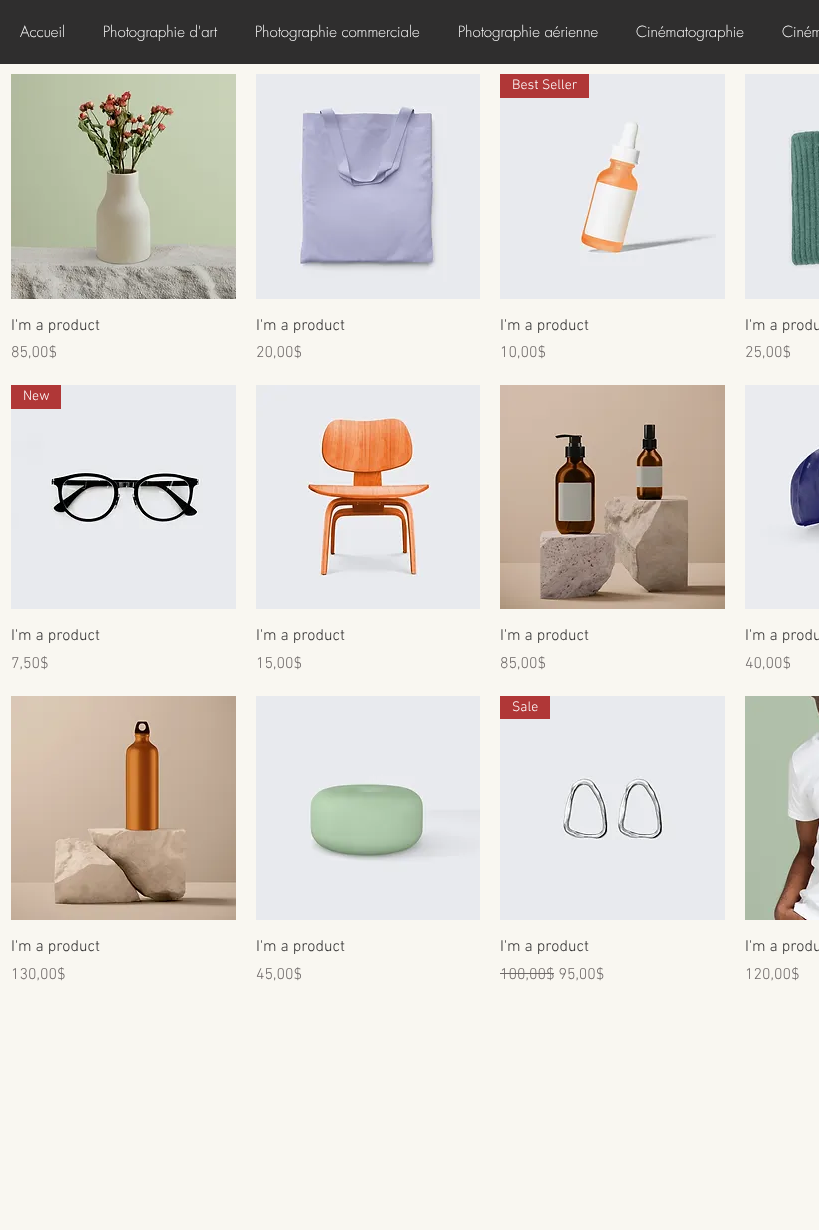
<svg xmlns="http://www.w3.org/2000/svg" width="819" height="1230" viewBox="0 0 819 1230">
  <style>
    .t1 { font: 300 15px futura; fill: #fff; }
    .t2 { font: 300 16px 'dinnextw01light'; fill: #2f2e2e; }
    .t3 { font: 300 16px 'dinnextw01light'; fill: #6e6968; }
    .t4 { font: 300 14px 'dinnextw01light'; fill: #fff; }
  </style>
  <rect width="100%" height="100%" fill="#f9f7f1"/>
  <rect x="0" y="0" width="819" height="64" fill="#2f2e2e"/>
  <text x="20" y="37" class="t1">Accueil</text>
  <text x="103" y="37" class="t1">Photographie d'art</text>
  <text x="255" y="37" class="t1">Photographie commerciale</text>
  <text x="458" y="37" class="t1">Photographie aérienne</text>
  <text x="636" y="37" class="t1">Cinématographie</text>
  <text x="782" y="37" class="t1">Ciném</text>
  <image x="11" y="74" width="225" height="225" href="images/1.png"/>
  <text x="11" y="330" class="t2">I'm a product</text>
  <text x="11" y="357" class="t3">85,00$</text>
  <image x="256" y="74" width="224" height="225" href="images/2.png"/>
  <text x="256" y="330" class="t2">I'm a product</text>
  <text x="256" y="357" class="t3">20,00$</text>
  <image x="500" y="74" width="225" height="225" href="images/3.png"/>
  <rect x="500" y="74" width="89" height="24" fill="#b03737"/>
  <text x="512" y="89" class="t4">Best Seller</text>
  <text x="500" y="330" class="t2">I'm a product</text>
  <text x="500" y="357" class="t3">10,00$</text>
  <image x="745" y="74" width="74" height="225" href="images/4.png"/>
  <text x="745" y="330" class="t2">I'm a produ</text>
  <text x="745" y="357" class="t3">25,00$</text>
  <image x="11" y="385" width="225" height="224" href="images/5.png"/>
  <rect x="11" y="385" width="50" height="24" fill="#b03737"/>
  <text x="23" y="400" class="t4">New</text>
  <text x="11" y="640" class="t2">I'm a product</text>
  <text x="11" y="668" class="t3">7,50$</text>
  <image x="256" y="385" width="224" height="224" href="images/6.png"/>
  <text x="256" y="640" class="t2">I'm a product</text>
  <text x="256" y="668" class="t3">15,00$</text>
  <image x="500" y="385" width="225" height="224" href="images/7.png"/>
  <text x="500" y="640" class="t2">I'm a product</text>
  <text x="500" y="668" class="t3">85,00$</text>
  <image x="745" y="385" width="74" height="224" href="images/8.png"/>
  <text x="745" y="640" class="t2">I'm a produ</text>
  <text x="745" y="668" class="t3">40,00$</text>
  <image x="11" y="696" width="225" height="224" href="images/9.png"/>
  <text x="11" y="951" class="t2">I'm a product</text>
  <text x="11" y="979" class="t3">130,00$</text>
  <image x="256" y="696" width="224" height="224" href="images/10.png"/>
  <text x="256" y="951" class="t2">I'm a product</text>
  <text x="256" y="979" class="t3">45,00$</text>
  <image x="500" y="696" width="225" height="224" href="images/11.png"/>
  <rect x="500" y="696" width="50" height="23" fill="#b03737"/>
  <text x="512" y="711" class="t4">Sale</text>
  <text x="500" y="951" class="t2">I'm a product</text>
  <text x="500" y="979" class="t3">100,00$ 95,00$</text>
  <rect x="500" y="973" width="54" height="1" fill="#6e6968"/>
  <image x="745" y="696" width="74" height="224" href="images/12.png"/>
  <text x="745" y="951" class="t2">I'm a produ</text>
  <text x="745" y="979" class="t3">120,00$</text>
</svg>
